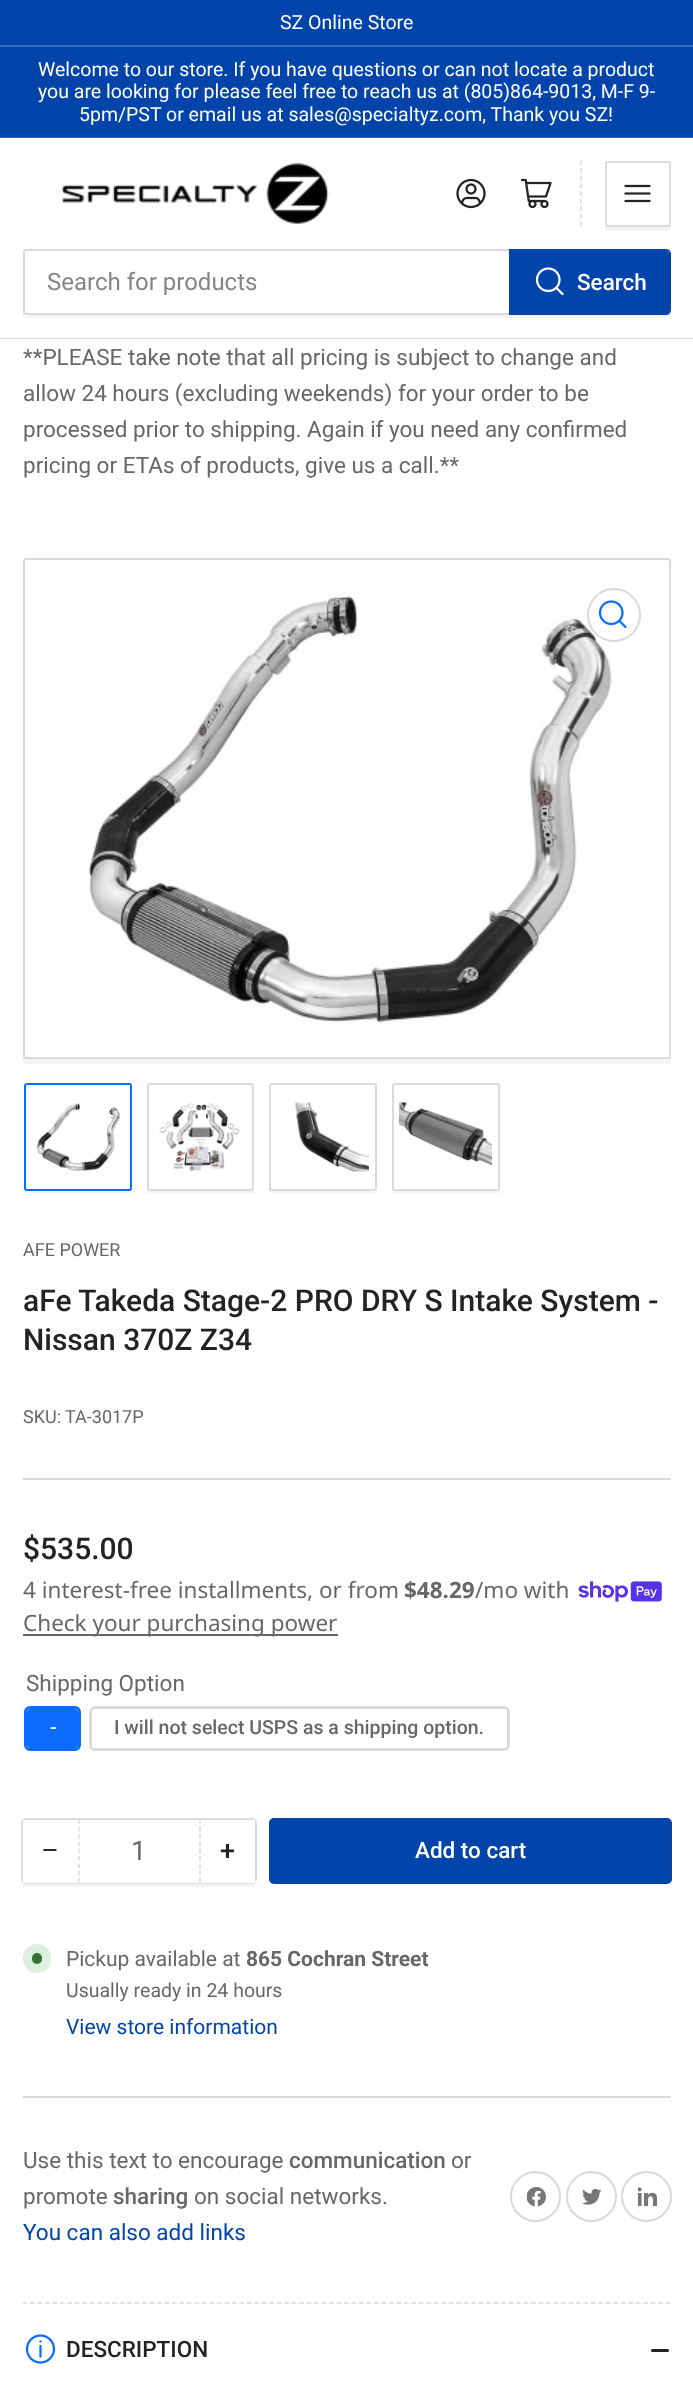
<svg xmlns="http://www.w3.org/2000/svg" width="693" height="2382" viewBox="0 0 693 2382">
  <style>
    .t1 { font: 19.5px Roboto; fill: #fff; }
    .t2 { font: 24px Roboto; fill: #858585; }
    .t3 { font: 500 22.5px Roboto; fill: #fff; }
    .t4 { font: 22.5px Roboto; fill: #676767; }
    .t5 { font: 18px Roboto; fill: #676767; }
    .t6 { font: 500 30px Roboto; fill: #232323; }
    .t7 { font: 22.5px Noto Sans; fill: #676767; }
    .t8 { font: bold 22.5px Noto Sans; fill: #676767; }
    .t9 { font: 500 19.5px Roboto; fill: #fff; }
    .t10 { font: 500 19.5px Roboto; fill: #676767; }
    .t11 { font: 27px Liberation Sans; fill: #232323; }
    .t12 { font: 27px Roboto; fill: #676767; }
    .t13 { font: 500 27px Roboto; fill: #232323; }
    .t14 { font: 21px Roboto; fill: #676767; }
    .t15 { font: bold 21px Roboto; fill: #676767; }
    .t16 { font: 19.5px Roboto; fill: #676767; }
    .t17 { font: 21px Roboto; fill: #0244a9; }
    .t18 { font: 500 22.5px Roboto; fill: #676767; }
    .t19 { font: 22.5px Roboto; fill: #0244a9; }
    .t20 { font: 500 22.5px Roboto; fill: #232323; }
  </style>
  <defs>
    <clipPath id="clip1"><rect x="23" y="1082" width="648" height="111"/></clipPath>
  </defs>
  <rect width="100%" height="100%" fill="#fff"/>
  <rect x="0" y="0" width="693" height="45" fill="#0244a9"/>
  <rect x="0" y="45" width="693" height="2" fill="#3569ba"/>
  <text x="280" y="29" class="t1">SZ Online Store</text>
  <rect x="0" y="47" width="693" height="90" fill="#0244a9"/>
  <rect x="0" y="137" width="693" height="1" fill="#3569ba"/>
  <text x="38" y="76" class="t1">Welcome to our store. If you have questions or can not locate a product</text>
  <text x="38" y="98" class="t1">you are looking for please feel free to reach us at (805)864-9013, M-F 9-</text>
  <text x="79" y="121" class="t1">5pm/PST or email us at sales@specialtyz.com, Thank you SZ!</text>
  <rect x="0" y="338" width="693" height="1" fill="#dadada"/>
  <image x="61" y="163" width="268" height="61" href="images/1.png"/>
  <image x="456" y="178" width="30" height="31" href="images/2.png"/>
  <image x="520" y="178" width="32" height="31" href="images/3.png"/>
  <path d="M581 160.5V226.5" fill="none" stroke="#dadada" stroke-width="1.5" stroke-dasharray="4.5 3.18"/>
  <path d="M605 225V228C605 230 606 231 608 231H668C670 231 671 230 671 228V168L670 166V224C670 225 669 226 668 226H608C606 226 606 226 605 225Z" fill="#f4f4f4"/>
  <rect x="606" y="162" width="64" height="64" rx="2" fill="none" stroke="#dadada" stroke-width="2"/>
  <image x="624" y="184" width="27" height="19" href="images/4.png"/>
  <path d="M23 314V315C23 317 24 318 26 318H668C670 318 671 317 671 315V255L670 253V312C670 314 669 315 668 315H26C24 315 24 314 23 314Z" fill="#f4f4f4"/>
  <rect x="24" y="250" width="646" height="64" rx="2" fill="#fff" stroke="#dadada" stroke-width="2"/>
  <text x="47" y="290" class="t2">Search for products</text>
  <path d="M510 250H666C668 250 670 252 670 254V310C670 312 668 314 666 314H510Z" fill="none" stroke="#0244a9" stroke-width="2"/>
  <path d="M510 251H666C667.5 251 669 252.5 669 254V311C669 312.5 667.5 314 666 314H510Z" fill="#0244a9"/>
  <image x="535" y="267" width="29" height="29" href="images/5.png"/>
  <text x="577" y="290" class="t3">Search</text>
  <text x="23" y="365" class="t4">**PLEASE take note that all pricing is subject to change and</text>
  <text x="23" y="401" class="t4">allow 24 hours (excluding weekends) for your order to be</text>
  <text x="23" y="437" class="t4">processed prior to shipping. Again if you need any confirmed</text>
  <text x="23" y="473" class="t4">pricing or ETAs of products, give us a call.**</text>
  <path d="M23 1058V1061C23 1063 24 1064 26 1064H668C670 1064 671 1063 671 1061V566L670 564V1056C670 1058 669 1059 668 1059H26C24 1059 24 1058 23 1058Z" fill="#f4f4f4"/>
  <rect x="24" y="559" width="646" height="499" rx="2" fill="#fff" stroke="#dadada" stroke-width="2"/>
  <image x="86" y="594" width="526" height="431" href="images/6.png"/>
  <circle cx="614" cy="615" r="26" fill="#ffffffe6" stroke="#dadada" stroke-width="2"/>
  <image x="598" y="600" width="29" height="29" href="images/7.png"/>
  <g clip-path="url(#clip1)">
    <path d="M24 1188V1193C24 1195 25 1196 27 1196H129C131 1196 132 1195 132 1193V1188C132 1190 131 1191 129 1191H27C25 1191 24 1190 24 1188Z" fill="#f4f4f4"/>
  </g>
  <rect x="25" y="1084" width="106" height="106" rx="2" fill="none" stroke="#0b6cff" stroke-width="2"/>
  <image x="36" y="1103" width="85" height="68" href="images/8.png"/>
  <g clip-path="url(#clip1)">
    <path d="M147 1188V1193C147 1195 148 1196 150 1196H251C253 1196 254 1195 254 1193V1091V1089V1188C254 1190 252 1191 250 1191H150C148 1191 147 1190 147 1188Z" fill="#f4f4f4"/>
  </g>
  <rect x="148" y="1084" width="105" height="106" rx="2" fill="#fff" stroke="#dadada" stroke-width="2"/>
  <image x="159" y="1103" width="81" height="69" href="images/9.png"/>
  <g clip-path="url(#clip1)">
    <path d="M269 1190V1193C269 1195 270 1196 272 1196H374C376 1196 377 1195 377 1193V1091L376 1089V1188C376 1190 375 1191 374 1191H272C270 1191 270 1190 269 1190Z" fill="#f4f4f4"/>
  </g>
  <rect x="270" y="1084" width="106" height="106" rx="2" fill="#fff" stroke="#dadada" stroke-width="2"/>
  <image x="295" y="1102" width="74" height="70" href="images/10.png"/>
  <g clip-path="url(#clip1)">
    <path d="M392 1190V1193C392 1195 393 1196 395 1196H497C499 1196 500 1195 500 1193V1091V1089V1188C500 1190 498 1191 496 1191H394C393 1191 393 1190 392 1190Z" fill="#f4f4f4"/>
  </g>
  <rect x="393" y="1084" width="106" height="106" rx="2" fill="#fff" stroke="#dadada" stroke-width="2"/>
  <image x="399" y="1102" width="93" height="64" href="images/11.png"/>
  <rect x="23" y="1478" width="648" height="2" fill="#dadada"/>
  <text x="23" y="1256" class="t5">AFE POWER</text>
  <text x="23" y="1311" class="t6">aFe Takeda Stage-2 PRO DRY S Intake System -</text>
  <text x="23" y="1350" class="t6">Nissan 370Z Z34</text>
  <text x="23" y="1423" class="t5">SKU:</text>
  <text x="65" y="1423" class="t5">TA-3017P</text>
  <text x="23" y="1559" class="t6">$535.00</text>
  <text x="23" y="1598" class="t7">4 interest-free installments, or from</text>
  <text x="404" y="1598" class="t8">$48.29</text>
  <text x="475" y="1598" class="t7">/mo with</text>
  <image x="578" y="1581" width="84" height="21" href="images/12.png"/>
  <rect x="23" y="1634" width="315" height="2" fill="#676767"/>
  <text x="23" y="1631" class="t7">Check your purchasing power</text>
  <text x="26" y="1691" class="t4">Shipping Option</text>
  <rect x="25.5" y="1707.5" width="54" height="42" rx="4.5" fill="none" stroke="#0b6cff" stroke-width="3"/>
  <rect x="27" y="1709" width="51" height="39" rx="3" fill="#0b6cff"/>
  <text x="50" y="1734" class="t9">-</text>
  <rect x="90.5" y="1707.5" width="418" height="42" rx="4.5" fill="none" stroke="#dadada" stroke-width="3"/>
  <rect x="92" y="1709" width="415" height="39" rx="3" fill="#fff"/>
  <text x="114" y="1734" class="t10">I will not select USPS as a shipping option.</text>
  <path d="M23 1881V1884C23 1886 24 1887 26 1887H252C254 1887 255 1886 255 1884V1880C255 1881 254 1882 252 1882H26C24 1882 24 1882 23 1881Z" fill="#f4f4f4"/>
  <rect x="22" y="1819" width="234" height="64" rx="4" fill="none" stroke="#dadada" stroke-width="2"/>
  <rect x="78" y="1882" width="123" height="1" fill="#fff"/>
  <rect x="23" y="1820" width="55" height="63" fill="#fff"/>
  <text x="42" y="1859" class="t11">−</text>
  <path d="M200 1819.5V1882.5" fill="none" stroke="#dadada" stroke-width="1.5" stroke-dasharray="4.5 2.82"/>
  <path d="M79 1819.5V1882.5" fill="none" stroke="#dadada" stroke-width="1.5" stroke-dasharray="4.5 2.82"/>
  <text x="131" y="1860" class="t12">1</text>
  <rect x="201" y="1820" width="54" height="63" fill="#fff"/>
  <text x="220" y="1860" class="t13">+</text>
  <rect x="270" y="1819" width="401" height="64" rx="4" fill="none" stroke="#0244a9" stroke-width="2"/>
  <rect x="270" y="1820" width="401" height="63" rx="3" fill="#0244a9"/>
  <text x="415" y="1858" class="t3">Add to cart</text>
  <rect x="23" y="1944" width="28" height="29" rx="14" fill="#ddf0df"/>
  <rect x="32" y="1953" width="10" height="11" rx="5" fill="#337239"/>
  <text x="66" y="1966" class="t14">Pickup available at</text>
  <text x="246" y="1966" class="t15">865 Cochran Street</text>
  <text x="66" y="1997" class="t16">Usually ready in 24 hours</text>
  <text x="66" y="2034" class="t17">View store information</text>
  <rect x="23" y="2096" width="648" height="2" fill="#dadada"/>
  <text x="23" y="2168" class="t4">Use this text to encourage</text>
  <text x="289" y="2168" class="t18">communication</text>
  <text x="451" y="2168" class="t4">or</text>
  <text x="23" y="2204" class="t4">promote</text>
  <text x="113" y="2204" class="t18">sharing</text>
  <text x="194" y="2204" class="t4">on social networks.</text>
  <text x="23" y="2240" class="t19">You can also add links</text>
  <circle cx="535.5" cy="2196.5" r="24.5" fill="none" stroke="#d9d9d9" stroke-width="2"/>
  <image x="527" y="2187" width="19" height="20" href="images/13.png"/>
  <circle cx="591.5" cy="2196.5" r="24.5" fill="none" stroke="#d9d9d9" stroke-width="2"/>
  <image x="582" y="2188" width="20" height="17" href="images/14.png"/>
  <circle cx="646.5" cy="2196.5" r="24.5" fill="none" stroke="#d9d9d9" stroke-width="2"/>
  <image x="638" y="2187" width="19" height="20" href="images/15.png"/>
  <path d="M22.5 2303H670.5" fill="none" stroke="#dadada" stroke-width="1.5" stroke-dasharray="4.5 2.98"/>
  <image x="25" y="2334" width="31" height="30" href="images/16.png"/>
  <text x="66" y="2357" class="t20">DESCRIPTION</text>
  <rect x="651" y="2349" width="11" height="3" rx="1.5" fill="#232323"/>
  <rect x="657" y="2349" width="12" height="3" rx="1.5" fill="#232323"/>
</svg>
